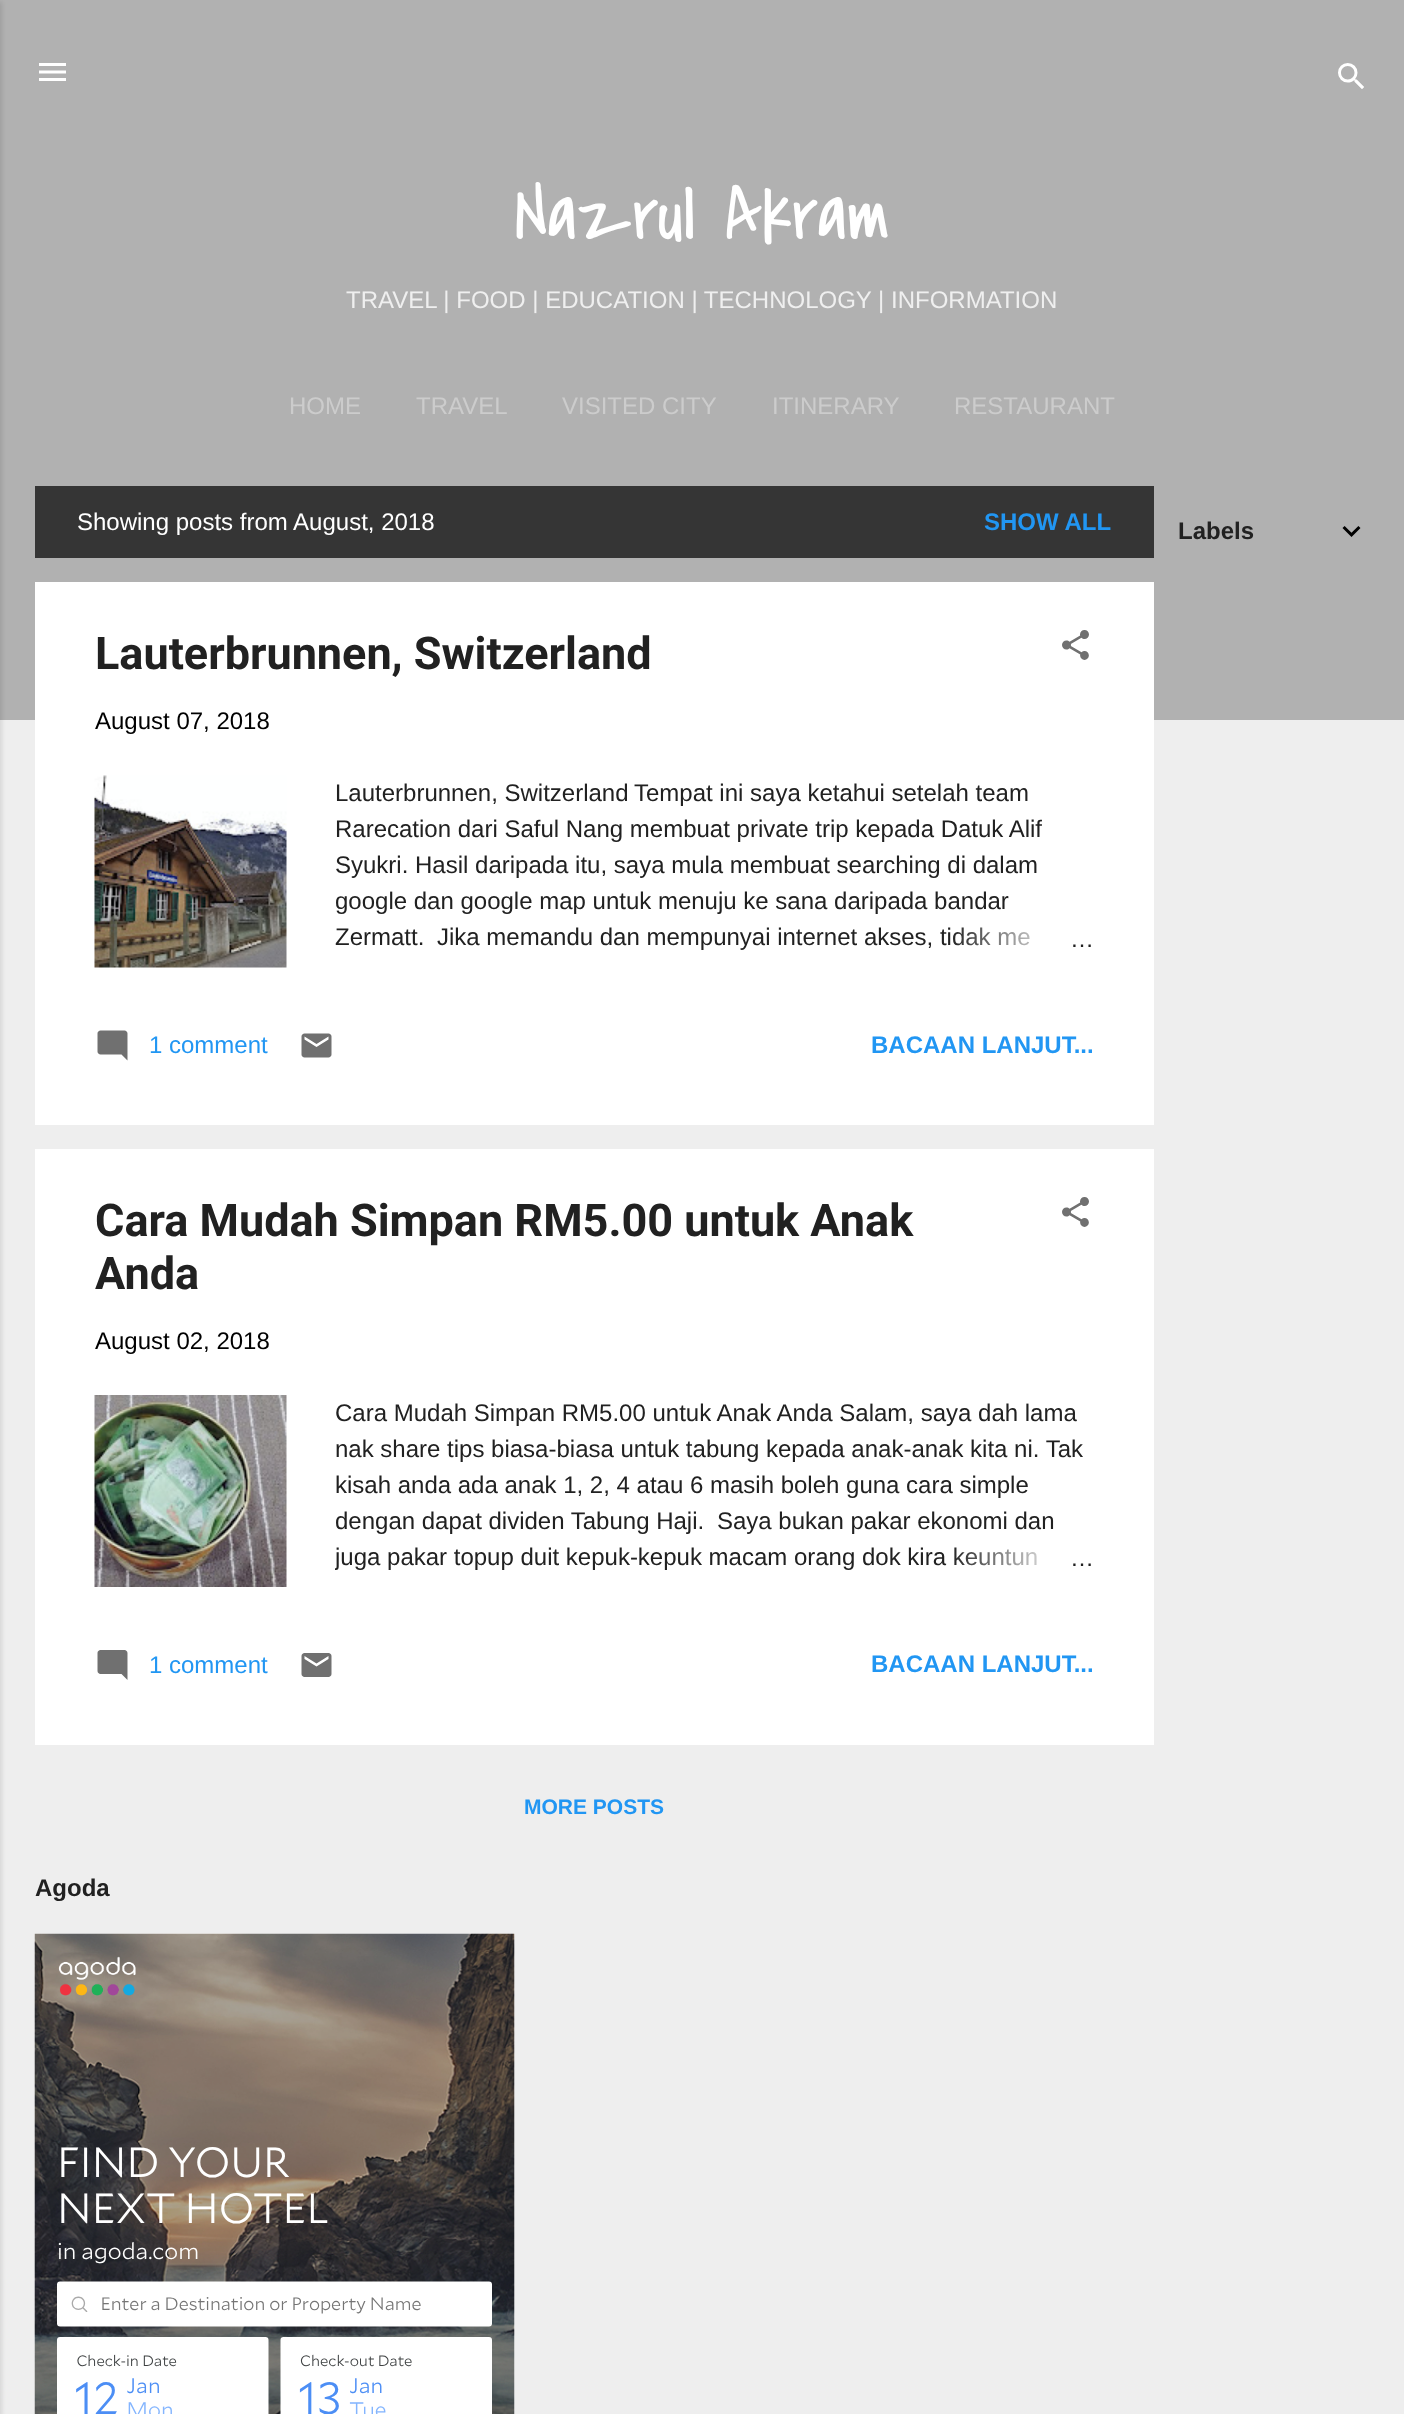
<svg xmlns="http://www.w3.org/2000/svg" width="1404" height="2414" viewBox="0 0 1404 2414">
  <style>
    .t1 { font: 75px Covered By Your Grace; fill: #fff; }
    .t2 { font: 24px Liberation Sans; fill: #efefef; }
    .t3 { font: 24px Liberation Sans; fill: #ccc; }
    .t4 { font: 24px Liberation Sans; fill: #fff; }
    .t5 { font: bold 24px Liberation Sans; fill: #2196f3; }
    .t6 { font: bold 45px Roboto; fill: #212121; }
    .t7 { font: 24px Liberation Sans; fill: #000; }
    .t8 { font: 24px Liberation Sans; fill: #212121; }
    .t9 { font: 24px Liberation Sans; fill: #2196f3; }
    .t10 { font: bold 21px Liberation Sans; fill: #2196f3; }
    .t11 { font: bold 24px Liberation Sans; fill: #212121; }
  </style>
  <defs>
    <linearGradient id="g1" gradientUnits="userSpaceOnUse" x1="1094" y1="938" x2="950" y2="938"><stop offset="0" stop-color="#fff"/><stop offset="0.2" stop-color="#fff"/><stop offset="1" stop-color="#fff" stop-opacity="0"/></linearGradient>
    <clipPath id="clip1"><rect x="335" y="1395" width="759" height="180"/></clipPath>
    <linearGradient id="g2" gradientUnits="userSpaceOnUse" x1="1094" y1="1557" x2="950" y2="1557"><stop offset="0" stop-color="#fff"/><stop offset="0.2" stop-color="#fff"/><stop offset="1" stop-color="#fff" stop-opacity="0"/></linearGradient>
  </defs>
  <rect width="100%" height="100%" fill="#eee"/>
  <rect x="0" y="0" width="1404" height="720" fill="#b1b1b1"/>
  <rect x="-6" y="2" width="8" height="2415" fill="#0000001a" filter="blur(2px)"/>
  <image x="39" y="63" width="27" height="18" href="images/1.png"/>
  <image x="1338" y="63" width="26" height="26" href="images/2.png"/>
  <text x="515" y="239" class="t1">Nazrul Akram</text>
  <text x="346" y="308" class="t2">TRAVEL | FOOD | EDUCATION | TECHNOLOGY | INFORMATION</text>
  <text x="289" y="414" class="t3">HOME</text>
  <text x="416" y="414" class="t3">TRAVEL</text>
  <text x="562" y="414" class="t3">VISITED CITY</text>
  <text x="772" y="414" class="t3">ITINERARY</text>
  <text x="954" y="414" class="t3">RESTAURANT</text>
  <rect x="35" y="486" width="1119" height="72" fill="#353535"/>
  <text x="77" y="530" class="t4">Showing posts from August, 2018</text>
  <text x="984" y="530" class="t5">SHOW ALL</text>
  <rect x="35" y="582" width="1119" height="543" fill="#fff"/>
  <text x="95" y="669" class="t6">Lauterbrunnen, Switzerland</text>
  <image x="1062" y="630" width="27" height="30" href="images/3.png"/>
  <text x="95" y="729" class="t7">August 07, 2018</text>
  <image x="94" y="775" width="193" height="193" href="images/4.png"/>
  <text x="335" y="801" class="t8">Lauterbrunnen, Switzerland</text>
  <text x="634" y="801" class="t8">Tempat ini saya ketahui setelah team</text>
  <text x="335" y="837" class="t8">Rarecation dari Saful Nang membuat private trip kepada Datuk Alif</text>
  <text x="335" y="873" class="t8">Syukri. Hasil daripada itu, saya mula membuat searching di dalam</text>
  <text x="335" y="909" class="t8">google dan google map untuk menuju ke sana daripada bandar</text>
  <text x="335" y="945" class="t8">Zermatt.</text>
  <text x="437" y="945" class="t8">Jika memandu dan mempunyai internet akses, tidak me</text>
  <rect x="953" y="927" width="77" height="19" fill="url(#g1)"/>
  <text x="1070" y="947" class="t8">…</text>
  <image x="97" y="1030" width="31" height="31" href="images/5.png"/>
  <text x="149" y="1053" class="t9">1 comment</text>
  <image x="301" y="1033" width="31" height="25" href="images/6.png"/>
  <text x="871" y="1053" class="t5">BACAAN LANJUT...</text>
  <rect x="35" y="1149" width="1119" height="596" fill="#fff"/>
  <text x="95" y="1236" class="t6">Cara Mudah Simpan RM5.00 untuk Anak</text>
  <text x="95" y="1289" class="t6">Anda</text>
  <image x="1062" y="1197" width="27" height="30" href="images/3.png"/>
  <text x="95" y="1349" class="t7">August 02, 2018</text>
  <image x="94" y="1395" width="193" height="192" href="images/7.png"/>
  <text x="335" y="1421" class="t8">Cara Mudah Simpan RM5.00 untuk Anak Anda Salam, saya dah lama</text>
  <text x="335" y="1457" class="t8">nak share tips biasa-biasa untuk tabung kepada anak-anak kita ni. Tak</text>
  <text x="335" y="1493" class="t8">kisah anda ada anak 1, 2, 4 atau 6 masih boleh guna cara simple</text>
  <text x="335" y="1529" class="t8">dengan dapat dividen Tabung Haji.</text>
  <text x="717" y="1529" class="t8">Saya bukan pakar ekonomi dan</text>
  <g clip-path="url(#clip1)">
    <text x="335" y="1565" class="t8">juga pakar topup duit kepuk-kepuk macam orang dok kira keuntun</text>
  </g>
  <rect x="954" y="1547" width="83" height="19" fill="url(#g2)"/>
  <text x="1070" y="1566" class="t8">…</text>
  <image x="97" y="1650" width="31" height="30" href="images/8.png"/>
  <text x="149" y="1673" class="t9">1 comment</text>
  <image x="301" y="1653" width="31" height="24" href="images/9.png"/>
  <text x="871" y="1672" class="t5">BACAAN LANJUT...</text>
  <text x="524" y="1814" class="t10">MORE POSTS</text>
  <text x="35" y="1896" class="t11">Agoda</text>
  <image x="34" y="1933" width="481" height="481" href="images/10.png"/>
  <text x="1178" y="539" class="t11">Labels</text>
  <image x="1342" y="526" width="19" height="11" href="images/11.png"/>
</svg>
